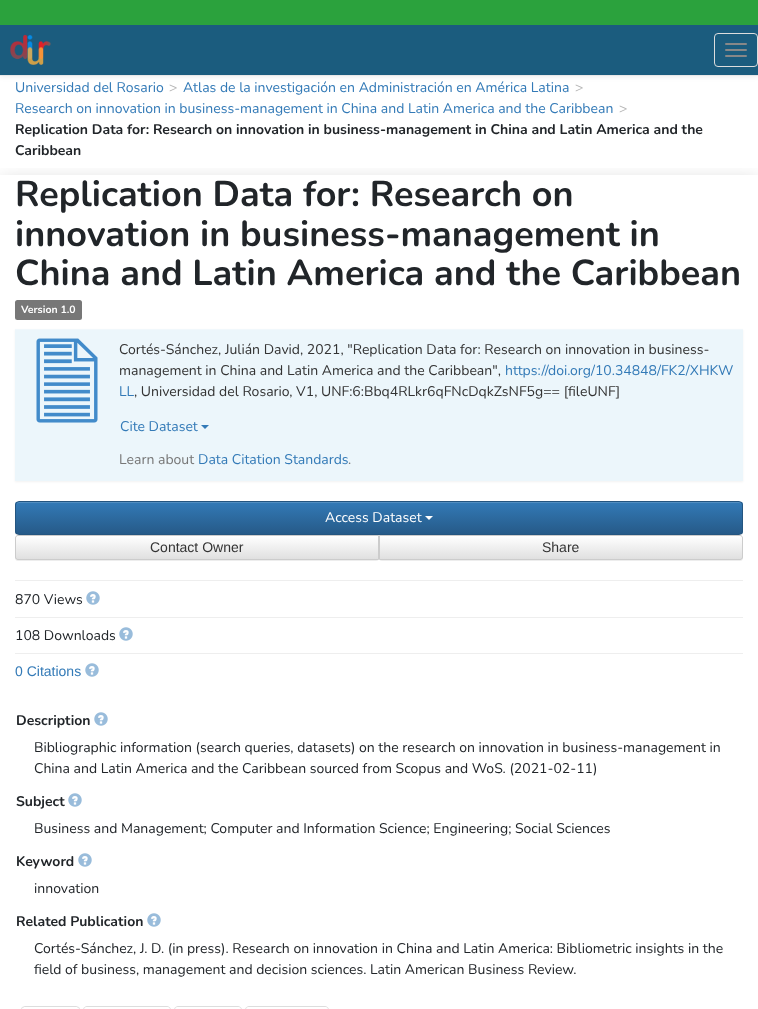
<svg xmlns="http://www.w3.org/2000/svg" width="758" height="1009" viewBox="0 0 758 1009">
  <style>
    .t1 { font: 14px Nunito; fill: #337ab7; }
    .t2 { font: 14px Nunito; fill: #b3b3b3; }
    .t3 { font: bold 14px Nunito; fill: #212529; }
    .t4 { font: bold 36px Nunito; fill: #212529; }
    .t5 { font: bold 10.5px Nunito; fill: #fff; }
    .t6 { font: 14px Nunito; fill: #333; }
    .t7 { font: 14px Nunito; fill: #777; }
    .t8 { font: 14px Nunito; fill: #fff; }
    .t9 { font: 14px Liberation Sans; fill: #333; }
    .t10 { font: 14px Nunito; fill: #212529; }
    .t11 { font: 14px Liberation Sans; fill: #337ab7; }
  </style>
  <defs>
    <clipPath id="clip1"><rect x="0" y="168" width="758" height="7"/></clipPath>
    <clipPath id="clip2"><rect x="15" y="501" width="728" height="34" rx="4"/></clipPath>
    <linearGradient id="g1" gradientUnits="userSpaceOnUse" x1="379" y1="502" x2="379" y2="534"><stop offset="0" stop-color="#337ab7"/><stop offset="1" stop-color="#265a88"/></linearGradient>
    <clipPath id="clip3"><path d="M18 535H379V560H18C16.5 560 15 558.5 15 557V538C15 536.5 16.5 535 18 535Z"/></clipPath>
    <linearGradient id="g2" gradientUnits="userSpaceOnUse" x1="197" y1="536" x2="197" y2="559"><stop offset="0" stop-color="#fff"/><stop offset="1" stop-color="#e0e0e0"/></linearGradient>
    <clipPath id="clip4"><path d="M379 535H740C741.5 535 743 536.5 743 538V557C743 558.5 741.5 560 740 560H379Z"/></clipPath>
    <linearGradient id="g3" gradientUnits="userSpaceOnUse" x1="561" y1="536" x2="561" y2="559"><stop offset="0" stop-color="#fff"/><stop offset="1" stop-color="#e0e0e0"/></linearGradient>
  </defs>
  <rect width="100%" height="100%" fill="#fff"/>
  <rect x="0" y="1" width="758" height="76" fill="#00000012" filter="blur(2.5px)"/>
  <rect x="0" y="25" width="758" height="50" fill="#1b5c7e"/>
  <rect x="0" y="75" width="758" height="1" fill="#e7e7e7"/>
  <rect x="0" y="0" width="758" height="25" fill="#2ba23d"/>
  <image x="10" y="34" width="41" height="31" href="images/1.png"/>
  <rect x="714.5" y="33.5" width="43" height="33" rx="3.5" fill="none" stroke="#ddd"/>
  <rect x="725" y="43" width="22" height="2" rx="1" fill="#888"/>
  <rect x="725" y="49" width="22" height="2" rx="1" fill="#888"/>
  <rect x="725" y="55" width="22" height="2" rx="1" fill="#888"/>
  <text x="15" y="92" class="t1">Universidad del Rosario</text>
  <text x="169" y="92" class="t2">&gt;</text>
  <text x="183" y="92" class="t1">Atlas de la investigación en Administración en América Latina</text>
  <text x="575" y="92" class="t2">&gt;</text>
  <text x="15" y="113" class="t1">Research on innovation in business-management in China and Latin America and the Caribbean</text>
  <text x="619" y="113" class="t2">&gt;</text>
  <text x="15" y="134" class="t3">Replication Data for: Research on innovation in business-management in China and Latin America and the</text>
  <g clip-path="url(#clip1)">
    <rect x="0" y="181" width="758" height="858" fill="#00000030" filter="blur(10px)"/>
  </g>
  <text x="15" y="155" class="t3">Caribbean</text>
  <text x="15" y="206" class="t4">Replication Data for: Research on</text>
  <text x="15" y="246" class="t4">innovation in business-management in</text>
  <text x="15" y="285" class="t4">China and Latin America and the Caribbean</text>
  <rect x="15" y="300" width="67" height="20" rx="2.5" fill="#777"/>
  <text x="21" y="313" class="t5">Version 1.0</text>
  <rect x="15" y="330" width="728" height="152" fill="#0000000d" filter="blur(1px)"/>
  <rect x="15" y="330" width="728" height="151" fill="#ecf6fb"/>
  <rect x="15" y="329" width="728" height="1" fill="#f1f8fc"/>
  <image x="36" y="338" width="62" height="85" href="images/2.png"/>
  <text x="119" y="354" class="t6">Cortés-Sánchez, Julián David, 2021, "Replication Data for: Research on innovation in business-</text>
  <text x="119" y="375" class="t6">management in China and Latin America and the Caribbean",</text>
  <text x="505" y="375" class="t1">https://doi.org/10.34848/FK2/XHKW</text>
  <text x="119" y="396" class="t1">LL</text>
  <text x="134" y="396" class="t6">, Universidad del Rosario, V1, UNF:6:Bbq4RLkr6qFNcDqkZsNF5g== [fileUNF]</text>
  <text x="120" y="431" class="t1">Cite Dataset</text>
  <path d="M201 425H209L205 429Z" fill="#337ab7"/>
  <text x="119" y="464" class="t7">Learn about</text>
  <text x="198" y="464" class="t1">Data Citation Standards</text>
  <text x="348" y="464" class="t7">.</text>
  <rect x="15" y="502" width="728" height="34" rx="4" fill="#00000012" filter="blur(0.5px)"/>
  <g clip-path="url(#clip2)">
    <rect x="15" y="502" width="728" height="32" fill="url(#g1)"/>
  </g>
  <path d="M19 503H739C741 503 742 504 742 506C742 504 741 502 739 502H19C17 502 16 504 16 506C16 504 17 503 19 503Z" fill="#528ec1"/>
  <rect x="15.5" y="501.5" width="727" height="33" rx="3.5" fill="none" stroke="#245580"/>
  <text x="325" y="522" class="t8">Access Dataset</text>
  <path d="M425 516H433L429 520Z" fill="#fff"/>
  <rect x="15" y="536" width="364" height="25" rx="3" fill="#00000012" filter="blur(0.5px)"/>
  <g clip-path="url(#clip3)">
    <rect x="15" y="536" width="363" height="23" fill="url(#g2)"/>
  </g>
  <path d="M18 535.5H378.5V559.5H18C16.5 559.5 15.5 558.5 15.5 557V538C15.5 536.5 16.5 535.5 18 535.5Z" fill="none" stroke="#ccc"/>
  <text x="150" y="552" class="t9">Contact Owner</text>
  <rect x="379" y="536" width="364" height="25" rx="3" fill="#00000012" filter="blur(0.5px)"/>
  <g clip-path="url(#clip4)">
    <rect x="380" y="536" width="363" height="23" fill="url(#g3)"/>
  </g>
  <path d="M379.5 535.5H740C741.5 535.5 742.5 536.5 742.5 538V557C742.5 558.5 741.5 559.5 740 559.5H379.5Z" fill="none" stroke="#ccc"/>
  <text x="542" y="552" class="t9">Share</text>
  <rect x="15" y="580" width="728" height="1" fill="#eee"/>
  <rect x="15" y="617" width="728" height="1" fill="#eee"/>
  <text x="15" y="604" class="t10">870 Views</text>
  <image x="86" y="591" width="14" height="14" href="images/3.png"/>
  <rect x="15" y="653" width="728" height="1" fill="#eee"/>
  <text x="15" y="640" class="t10">108 Downloads</text>
  <image x="119" y="627" width="14" height="14" href="images/3.png"/>
  <text x="15" y="676" class="t11">0 Citations</text>
  <image x="85" y="663" width="14" height="14" href="images/3.png"/>
  <text x="16" y="725" class="t3">Description</text>
  <image x="94" y="712" width="14" height="14" href="images/3.png"/>
  <text x="34" y="752" class="t10">Bibliographic information (search queries, datasets) on the research on innovation in business-management in</text>
  <text x="34" y="773" class="t10">China and Latin America and the Caribbean sourced from Scopus and WoS. (2021-02-11)</text>
  <text x="16" y="806" class="t3">Subject</text>
  <image x="68" y="793" width="14" height="14" href="images/3.png"/>
  <text x="34" y="833" class="t10">Business and Management; Computer and Information Science; Engineering; Social Sciences</text>
  <text x="16" y="866" class="t3">Keyword</text>
  <image x="78" y="853" width="14" height="14" href="images/3.png"/>
  <text x="34" y="893" class="t10">innovation</text>
  <text x="16" y="926" class="t3">Related Publication</text>
  <image x="147" y="913" width="14" height="14" href="images/3.png"/>
  <text x="34" y="953" class="t10">Cortés-Sánchez, J. D. (in press). Research on innovation in China and Latin America: Bibliometric insights in the</text>
  <text x="34" y="974" class="t10">field of business, management and decision sciences. Latin American Business Review.</text>
  <path d="M25 1006L22 1007L23 1008L24 1007H77L78 1008L79 1007L76 1006Z" fill="#ddd"/>
  <path d="M80 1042V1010C80 1009 79.5 1008 79 1007L78 1008C79 1008 79 1009 79 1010V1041ZM21 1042L22 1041V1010C22 1009 22 1008 23 1008L22 1007C21.5 1008 21 1009 21 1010Z" fill="#ddd"/>
  <path d="M87 1006H167C169 1006 171 1008 171 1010V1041H83V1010C83 1008 85 1006 87 1006ZM87 1007H167C169 1007 170 1008 170 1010V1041H84V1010C84 1008 85 1007 87 1007Z" fill="#ddd" fill-rule="evenodd"/>
  <path d="M178 1006H238C240 1006 242 1008 242 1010V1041H174V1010C174 1008 176 1006 178 1006ZM178 1007H238C240 1007 241 1008 241 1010V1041H175V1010C175 1008 176 1007 178 1007Z" fill="#ddd" fill-rule="evenodd"/>
  <path d="M249 1006H325C327 1006 329 1008 329 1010V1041H245V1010C245 1008 247 1006 249 1006ZM249 1007H325C327 1007 328 1008 328 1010V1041H246V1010C246 1008 247 1007 249 1007Z" fill="#ddd" fill-rule="evenodd"/>
</svg>
